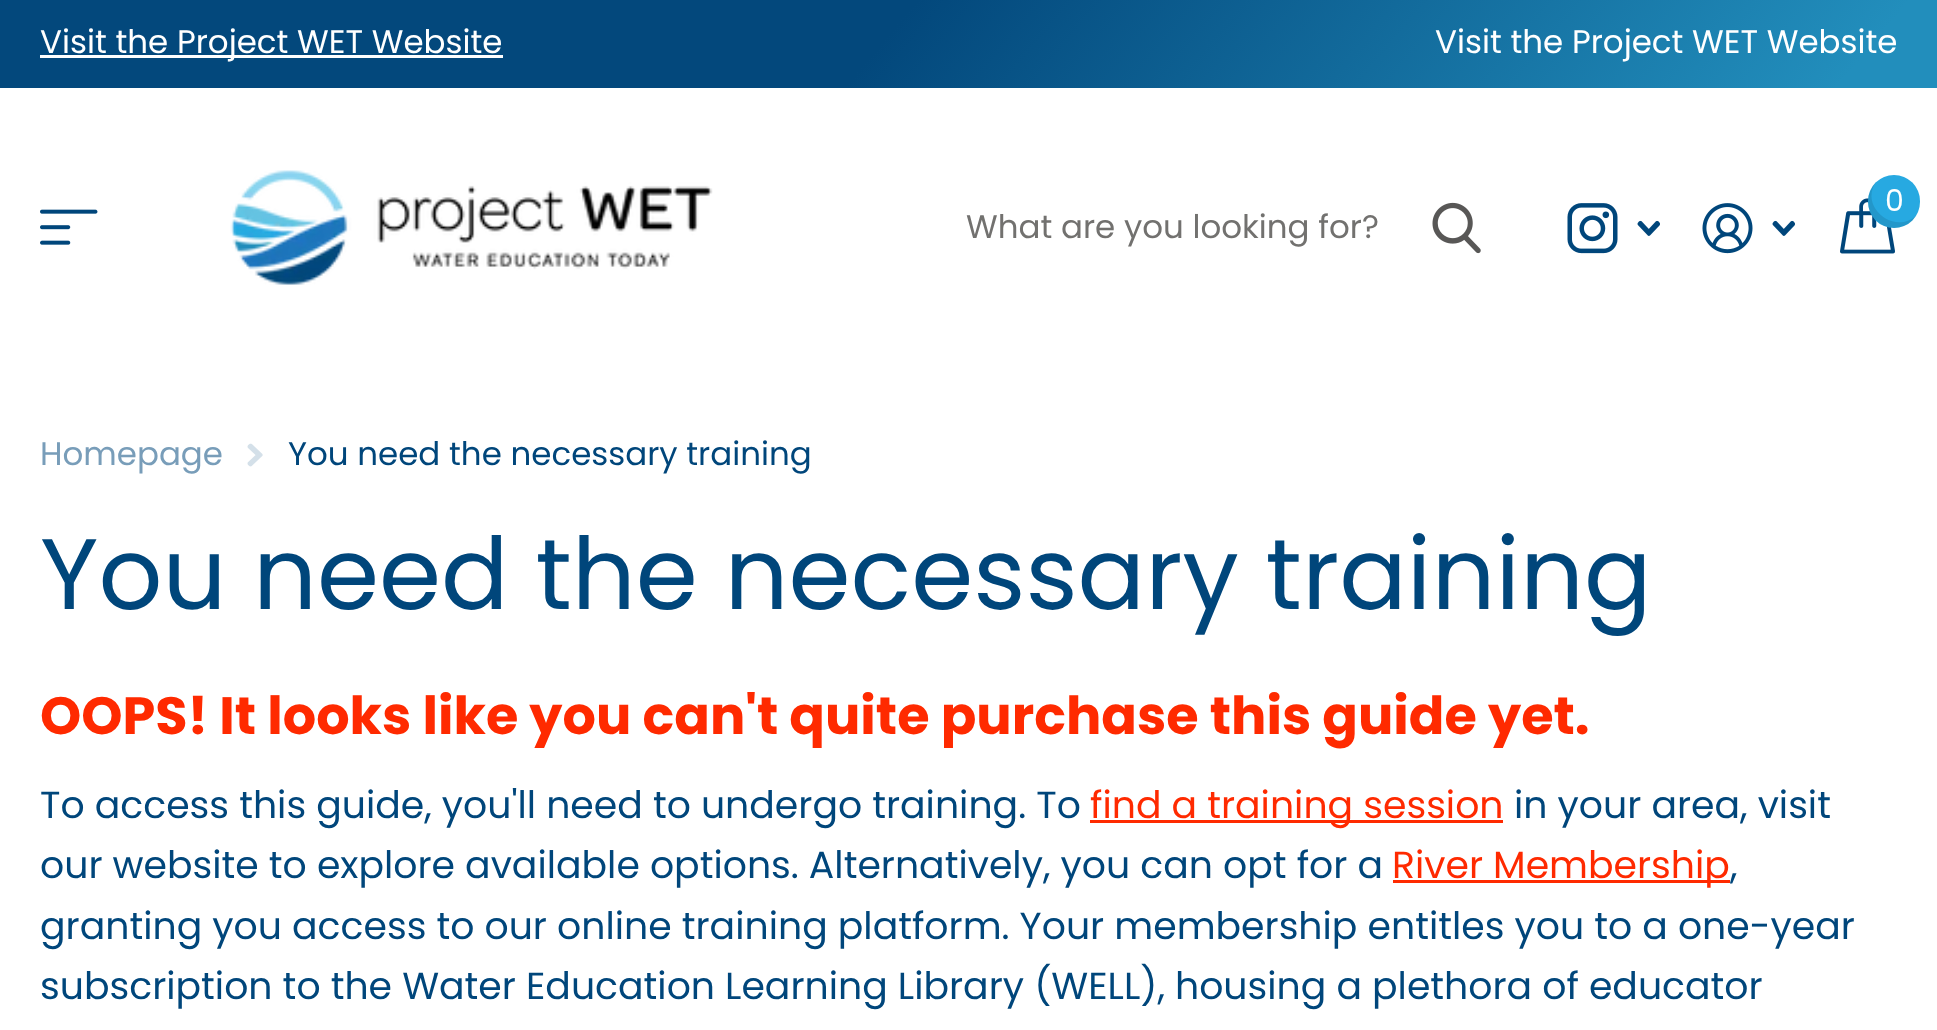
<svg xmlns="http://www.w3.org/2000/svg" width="1937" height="1030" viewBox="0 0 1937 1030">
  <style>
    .t1 { font: 32.5px Poppins; fill: #fff; }
    .t2 { font: 30px Poppins; fill: #fff; }
    .t3 { font: 32.5px Poppins; fill: #72716f; }
    .t4 { font: 32.5px Poppins; fill: #789db9; }
    .t5 { font: 32.5px Poppins; fill: #00467b; }
    .t6 { font: 100px Poppins; fill: #00467b; }
    .t7 { font: bold 52.5px Poppins; fill: #ff2a00; }
    .t8 { font: 37.8px Poppins; fill: #00467b; }
    .t9 { font: 37.8px Poppins; fill: #ff2a00; }
  </style>
  <defs>
    <linearGradient id="g1" gradientUnits="userSpaceOnUse" x1="1616" y1="587" x2="322" y2="-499"><stop offset="0.09" stop-color="#228ebc"/><stop offset="0.54" stop-color="#03487c"/></linearGradient>
  </defs>
  <rect width="100%" height="100%" fill="#fff"/>
  <rect x="0" y="0" width="1937" height="88" fill="url(#g1)"/>
  <rect x="40" y="55" width="463" height="3" fill="#fff"/>
  <text x="40" y="53" class="t1">Visit the Project WET Website</text>
  <text x="1435" y="53" class="t1">Visit the Project WET Website</text>
  <image x="230" y="170" width="483" height="115" href="images/1.png"/>
  <image x="1840" y="198" width="55" height="56" href="images/2.png"/>
  <rect x="1868" y="175" width="52" height="53" rx="26" fill="#27a9e1"/>
  <path d="M1876 182C1866 192 1865 210 1876 220C1887 232 1907 230 1916 216C1894 235 1859 207 1876 182Z" fill="#0000001a"/>
  <text x="1885" y="211" class="t2">0</text>
  <image x="1567" y="203" width="51" height="51" href="images/3.png"/>
  <image x="1637" y="220" width="23" height="16" href="images/4.png"/>
  <image x="1702" y="203" width="51" height="51" href="images/5.png"/>
  <image x="1772" y="220" width="23" height="16" href="images/4.png"/>
  <image x="40" y="209" width="58" height="36" href="images/6.png"/>
  <text x="966" y="238" class="t3">What are you looking for?</text>
  <image x="1432" y="202" width="49" height="52" href="images/7.png"/>
  <text x="40" y="465" class="t4">Homepage</text>
  <image x="247" y="443" width="16" height="24" href="images/8.png"/>
  <text x="288" y="465" class="t5">You need the necessary training</text>
  <text x="40" y="609" class="t6">You need the necessary training</text>
  <text x="40" y="734" class="t7">OOPS! It looks like you can't quite purchase this guide yet.</text>
  <text x="40" y="818" class="t8">To access this guide, you'll need to undergo training. To</text>
  <rect x="1090" y="820" width="413" height="3" fill="#ff2a00"/>
  <text x="1090" y="818" class="t9">find a training session</text>
  <text x="1514" y="818" class="t8">in your area, visit</text>
  <text x="40" y="878" class="t8">our website to explore available options. Alternatively, you can opt for a</text>
  <rect x="1393" y="880" width="337" height="3" fill="#ff2a00"/>
  <text x="1392" y="878" class="t9">River Membership</text>
  <text x="1730" y="878" class="t8">,</text>
  <text x="40" y="939" class="t8">granting you access to our online training platform. Your membership entitles you to a one-year</text>
  <text x="40" y="999" class="t8">subscription to the Water Education Learning Library (WELL), housing a plethora of educator</text>
</svg>
